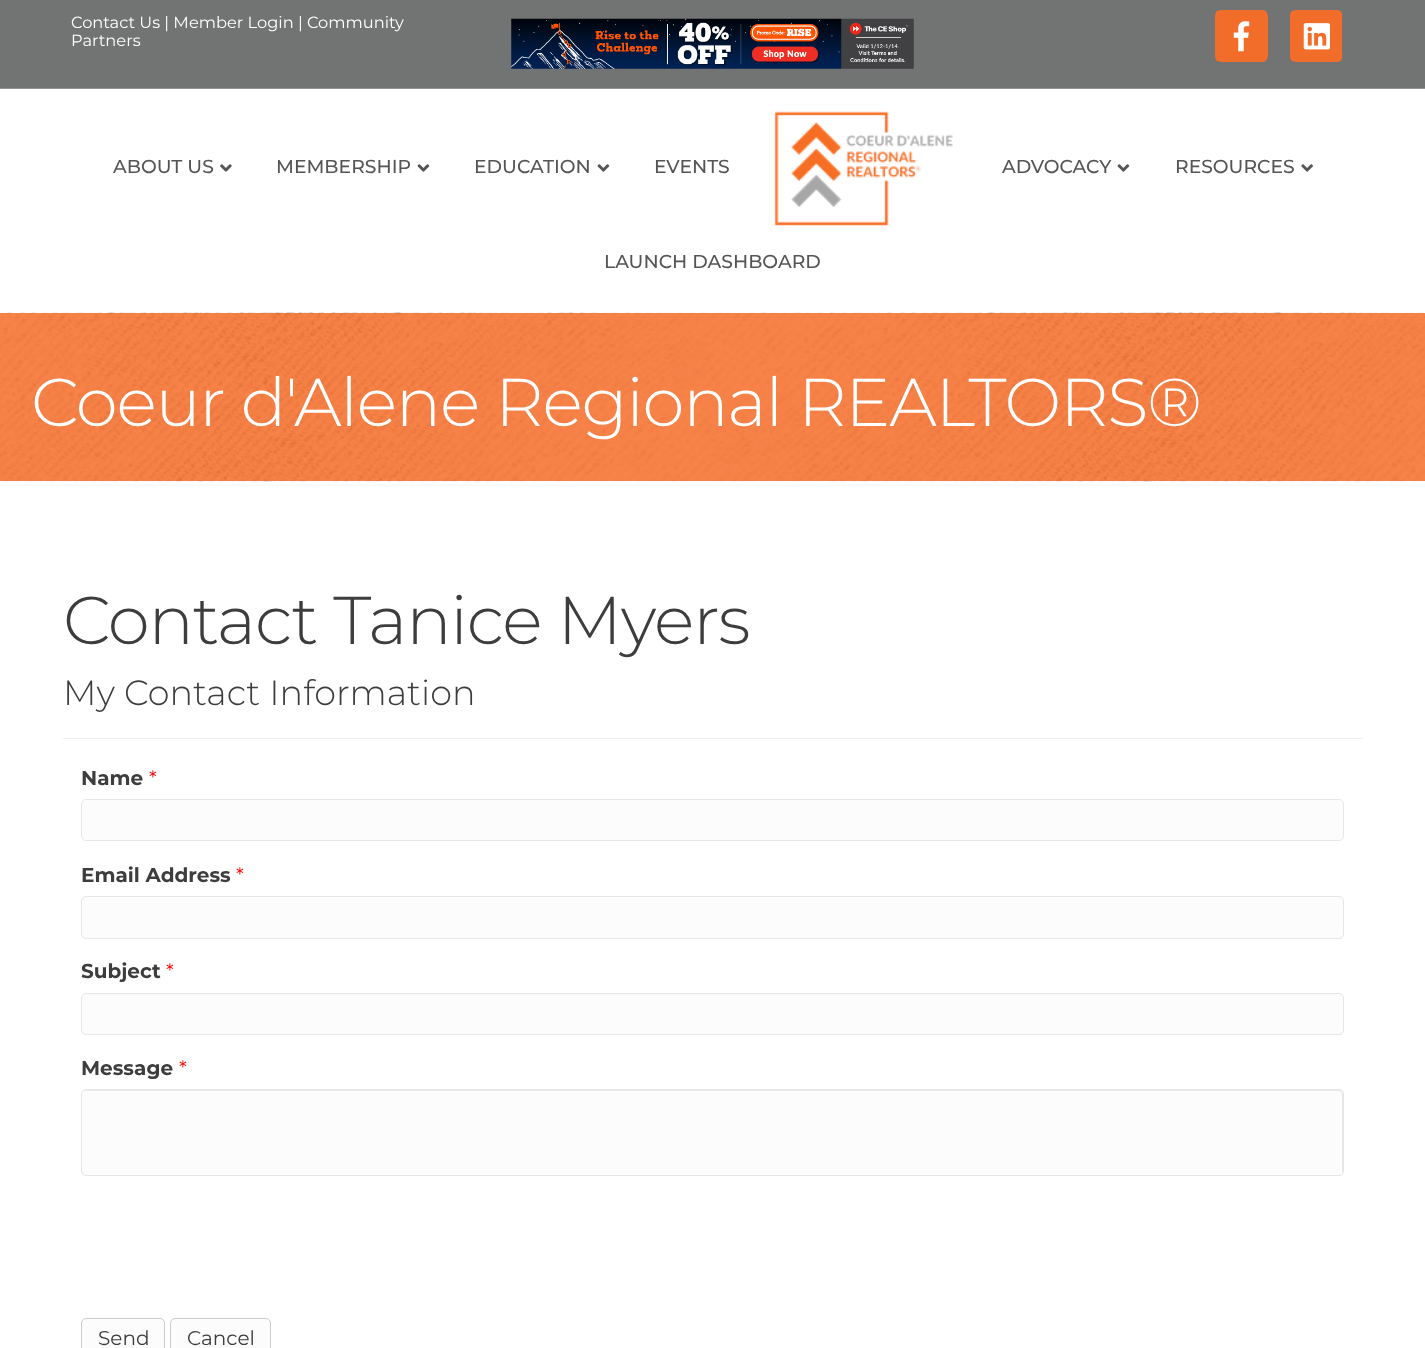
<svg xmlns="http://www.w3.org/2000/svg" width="1425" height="1348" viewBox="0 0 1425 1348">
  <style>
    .t1 { font: 16.25px Montserrat; fill: #fff; }
    .t2 { font: 500 18.75px Montserrat; fill: #555; }
    .t3 { font: 300 67.5px Montserrat; letter-spacing: -1.25px; fill: #fff; }
    .t4 { font: 300 67.5px Montserrat; letter-spacing: -1.25px; fill: #3d3d3d; }
    .t5 { font: 300 35px Montserrat; fill: #3d3d3d; }
    .t6 { font: bold 20px Montserrat; fill: #3d3d3d; }
    .t7 { font: 20px Montserrat; fill: #f00; }
    .t8 { font: 20px Montserrat; fill: #3d3d3d; }
  </style>
  <rect width="100%" height="100%" fill="#fff"/>
  <rect x="0" y="0" width="1425" height="88" fill="#727373"/>
  <rect x="0" y="88" width="1425" height="1" fill="#939494"/>
  <text x="71" y="28" class="t1">Contact Us | Member Login | Community</text>
  <text x="71" y="46" class="t1">Partners</text>
  <image x="511" y="18" width="403" height="51" href="images/1.png"/>
  <path d="M1262 10C1269 10 1268 18 1268 22V50C1268 54 1269 62 1262 62H1228C1215 62 1215 62 1215 50V22C1215 10 1215 10 1228 10Z" fill="#f36d2a"/>
  <image x="1233" y="21" width="17" height="31" href="images/2.png"/>
  <path d="M1337 10C1344 10 1342 18 1342 22V50C1342 54 1344 62 1337 62H1302C1290 62 1290 62 1290 50V22C1290 10 1290 10 1302 10Z" fill="#f36d2a"/>
  <image x="1303" y="23" width="27" height="27" href="images/3.png"/>
  <text x="113" y="173" class="t2">ABOUT US</text>
  <image x="220" y="164" width="12" height="8" href="images/4.png"/>
  <text x="276" y="173" class="t2">MEMBERSHIP</text>
  <image x="417" y="164" width="13" height="8" href="images/5.png"/>
  <text x="474" y="173" class="t2">EDUCATION</text>
  <image x="597" y="164" width="13" height="8" href="images/5.png"/>
  <text x="654" y="173" class="t2">EVENTS</text>
  <image x="774" y="111" width="179" height="116" href="images/6.png"/>
  <text x="1002" y="173" class="t2">ADVOCACY</text>
  <image x="1117" y="164" width="13" height="8" href="images/5.png"/>
  <text x="1175" y="173" class="t2">RESOURCES</text>
  <image x="1301" y="164" width="12" height="8" href="images/7.png"/>
  <text x="604" y="268" class="t2">LAUNCH DASHBOARD</text>
  <image x="0" y="312" width="1425" height="170" href="images/8.png"/>
  <text x="31" y="426" class="t3">Coeur d'Alene Regional REALTORS®</text>
  <text x="63" y="644" class="t4">Contact Tanice Myers</text>
  <text x="63" y="705" class="t5">My Contact Information</text>
  <rect x="63" y="738" width="1300" height="1" fill="#eee"/>
  <text x="81" y="785" class="t6">Name</text>
  <text x="149" y="785" class="t7">*</text>
  <rect x="81.5" y="799.5" width="1262" height="41" rx="4.5" fill="#fcfcfc" stroke="#e6e6e6"/>
  <text x="81" y="882" class="t6">Email Address</text>
  <text x="236" y="882" class="t7">*</text>
  <rect x="81.5" y="896.5" width="1262" height="42" rx="4.5" fill="#fcfcfc" stroke="#e6e6e6"/>
  <text x="81" y="978" class="t6">Subject</text>
  <text x="166" y="978" class="t7">*</text>
  <rect x="81.5" y="993.5" width="1262" height="41" rx="4.5" fill="#fcfcfc" stroke="#e6e6e6"/>
  <text x="81" y="1075" class="t6">Message</text>
  <text x="179" y="1075" class="t7">*</text>
  <rect x="81" y="1089" width="1263" height="87" rx="5" fill="#fcfcfc"/>
  <path d="M86 1091H1339C1341 1091 1342 1093 1342 1095V1174C1343 1173 1343 1172 1343 1171V1094C1343 1092 1341 1090 1339 1090H87C86 1090 84 1091 84 1092Z" fill="#e9e9e9"/>
  <rect x="81.5" y="1089.5" width="1262" height="86" rx="4.5" fill="none" stroke="#e6e6e6"/>
  <rect x="81.5" y="1318.5" width="83" height="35" rx="4.5" fill="#fcfcfc" stroke="#ccc"/>
  <text x="98" y="1345" class="t8">Send</text>
  <rect x="170.5" y="1318.5" width="100" height="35" rx="4.5" fill="#fcfcfc" stroke="#ccc"/>
  <text x="187" y="1345" class="t8">Cancel</text>
</svg>
